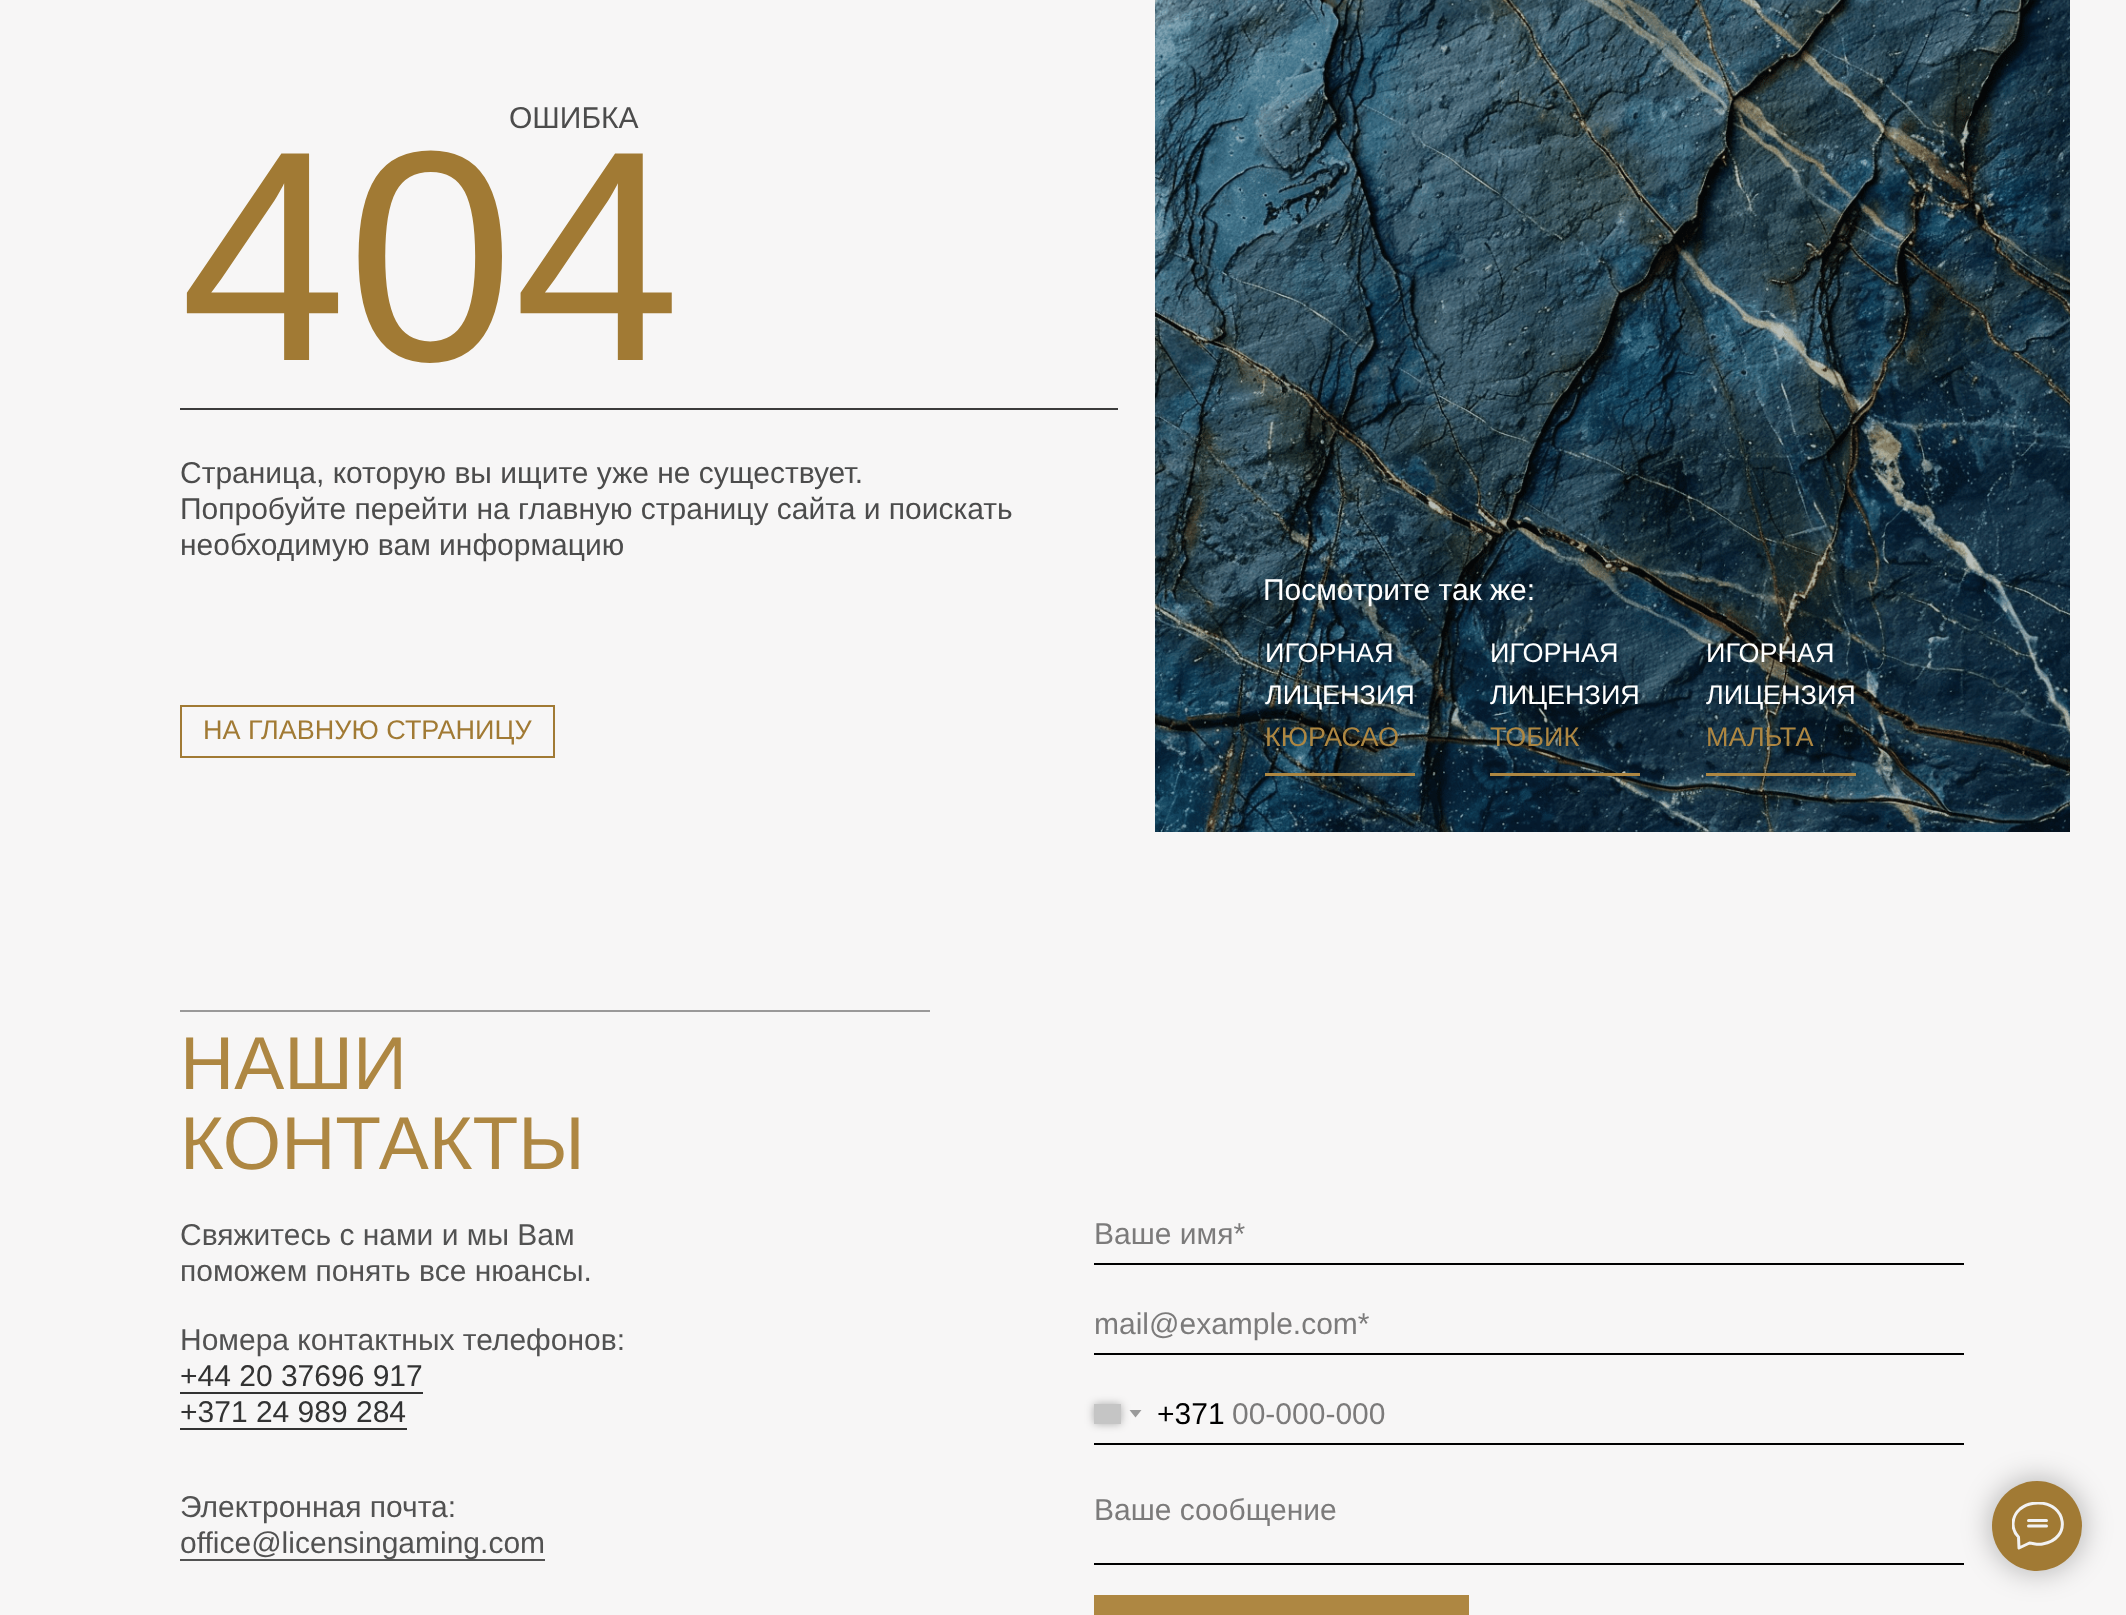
<svg xmlns="http://www.w3.org/2000/svg" width="2126" height="1615" viewBox="0 0 2126 1615">
  <style>
    .t1 { font: 30px Liberation Sans; fill: #4c4c4c; }
    .t2 { font: 300px Liberation Sans; fill: #a17a34; }
    .t3 { font: 30px Liberation Sans; fill: #fff; }
    .t4 { font: 27px Liberation Sans; fill: #a17a34; }
    .t5 { font: 27px Liberation Sans; fill: #fff; }
    .t6 { font: 27px Liberation Sans; fill: #ae8742; }
    .t7 { font: 75px Liberation Sans; fill: #ae8742; }
    .t8 { font: 30px Liberation Sans; fill: #525252; }
    .t9 { font: 30px Liberation Sans; fill: #7c7b7b; }
    .t10 { font: 30px Liberation Sans; fill: #000; }
    .t11 { font: 30px Liberation Sans; fill: #333; }
  </style>
  <defs>
    <clipPath id="clip1"><rect x="2012" y="1502" width="52" height="48"/></clipPath>
  </defs>
  <rect width="100%" height="100%" fill="#f7f6f6"/>
  <text x="509" y="128" class="t1">ОШИБКА</text>
  <image x="1155" y="0" width="915" height="832" href="images/1.png"/>
  <text x="180" y="360" class="t2">404</text>
  <rect x="180" y="408" width="938" height="2" fill="#3c3c3c"/>
  <text x="180" y="483" class="t1">Страница, которую вы ищите уже не существует.</text>
  <text x="180" y="519" class="t1">Попробуйте перейти на главную страницу сайта и поискать</text>
  <text x="180" y="555" class="t1">необходимую вам информацию</text>
  <text x="1263" y="600" class="t3">Посмотрите так же:</text>
  <rect x="181" y="706" width="373" height="51" fill="none" stroke="#a17a34" stroke-width="2"/>
  <text x="203" y="739" class="t4">НА ГЛАВНУЮ СТРАНИЦУ</text>
  <text x="1265" y="662" class="t5">ИГОРНАЯ</text>
  <text x="1265" y="704" class="t5">ЛИЦЕНЗИЯ</text>
  <text x="1265" y="746" class="t6">КЮРАСАО</text>
  <text x="1490" y="662" class="t5">ИГОРНАЯ</text>
  <text x="1490" y="704" class="t5">ЛИЦЕНЗИЯ</text>
  <text x="1490" y="746" class="t6">ТОБИК</text>
  <text x="1706" y="662" class="t5">ИГОРНАЯ</text>
  <text x="1706" y="704" class="t5">ЛИЦЕНЗИЯ</text>
  <text x="1706" y="746" class="t6">МАЛЬТА</text>
  <rect x="1265" y="773" width="150" height="3" fill="#ae8742"/>
  <rect x="1490" y="773" width="150" height="3" fill="#ae8742"/>
  <rect x="1706" y="773" width="150" height="3" fill="#ae8742"/>
  <rect x="180" y="1010" width="750" height="2" fill="#9a9999"/>
  <text x="180" y="1089" class="t7">НАШИ</text>
  <text x="180" y="1169" class="t7">КОНТАКТЫ</text>
  <text x="180" y="1245" class="t8">Свяжитесь с нами и мы Вам</text>
  <text x="180" y="1281" class="t8">поможем понять все нюансы.</text>
  <rect x="1094" y="1263" width="870" height="2" fill="#000"/>
  <text x="1094" y="1244" class="t9">Ваше имя*</text>
  <rect x="1094" y="1353" width="870" height="2" fill="#000"/>
  <text x="1094" y="1334" class="t9">mail@example.com*</text>
  <rect x="1094" y="1443" width="870" height="2" fill="#000"/>
  <rect x="1094" y="1404" width="27" height="20" fill="#0000004d" filter="blur(4px)"/>
  <rect x="1094" y="1404" width="27" height="20" fill="#c5c5c5"/>
  <path d="M1129.5 1410H1141.5L1135.5 1417.5Z" fill="#9a9a9a"/>
  <text x="1157" y="1424" class="t10">+371</text>
  <text x="1232" y="1424" class="t9">00-000-000</text>
  <rect x="1094" y="1563" width="870" height="2" fill="#000"/>
  <text x="1094" y="1520" class="t9">Ваше сообщение</text>
  <rect x="1094" y="1595" width="375" height="20" fill="#ae8742"/>
  <text x="180" y="1350" class="t8">Номера контактных телефонов:</text>
  <text x="180" y="1386" class="t11">+44 20 37696 917</text>
  <rect x="180" y="1392" width="243" height="2" fill="#333"/>
  <text x="180" y="1422" class="t11">+371 24 989 284</text>
  <rect x="180" y="1428" width="227" height="2" fill="#333"/>
  <text x="180" y="1517" class="t8">Электронная почта:</text>
  <rect x="180" y="1559" width="365" height="2" fill="#525252"/>
  <text x="180" y="1553" class="t8">office@licensingaming.com</text>
  <rect x="1992" y="1481" width="90" height="90" rx="45" fill="#0000004d" filter="blur(15px)"/>
  <circle cx="2037" cy="1526" r="45" fill="#a17a34"/>
  <g clip-path="url(#clip1)">
    <path d="M2028.5 1520.5H2046.5M2028.5 1526H2046.5M2018.5 1537C2010.5 1529 2011.5 1516.5 2020 1509C2025 1505 2031.5 1503 2038 1503C2067 1503 2072 1539 2042.5 1544C2037.5 1545 2034.5 1543.5 2029.5 1543L2019 1548Z" fill="none" stroke="#f2f2f2" stroke-width="3" stroke-linecap="round" stroke-linejoin="round"/>
  </g>
</svg>
